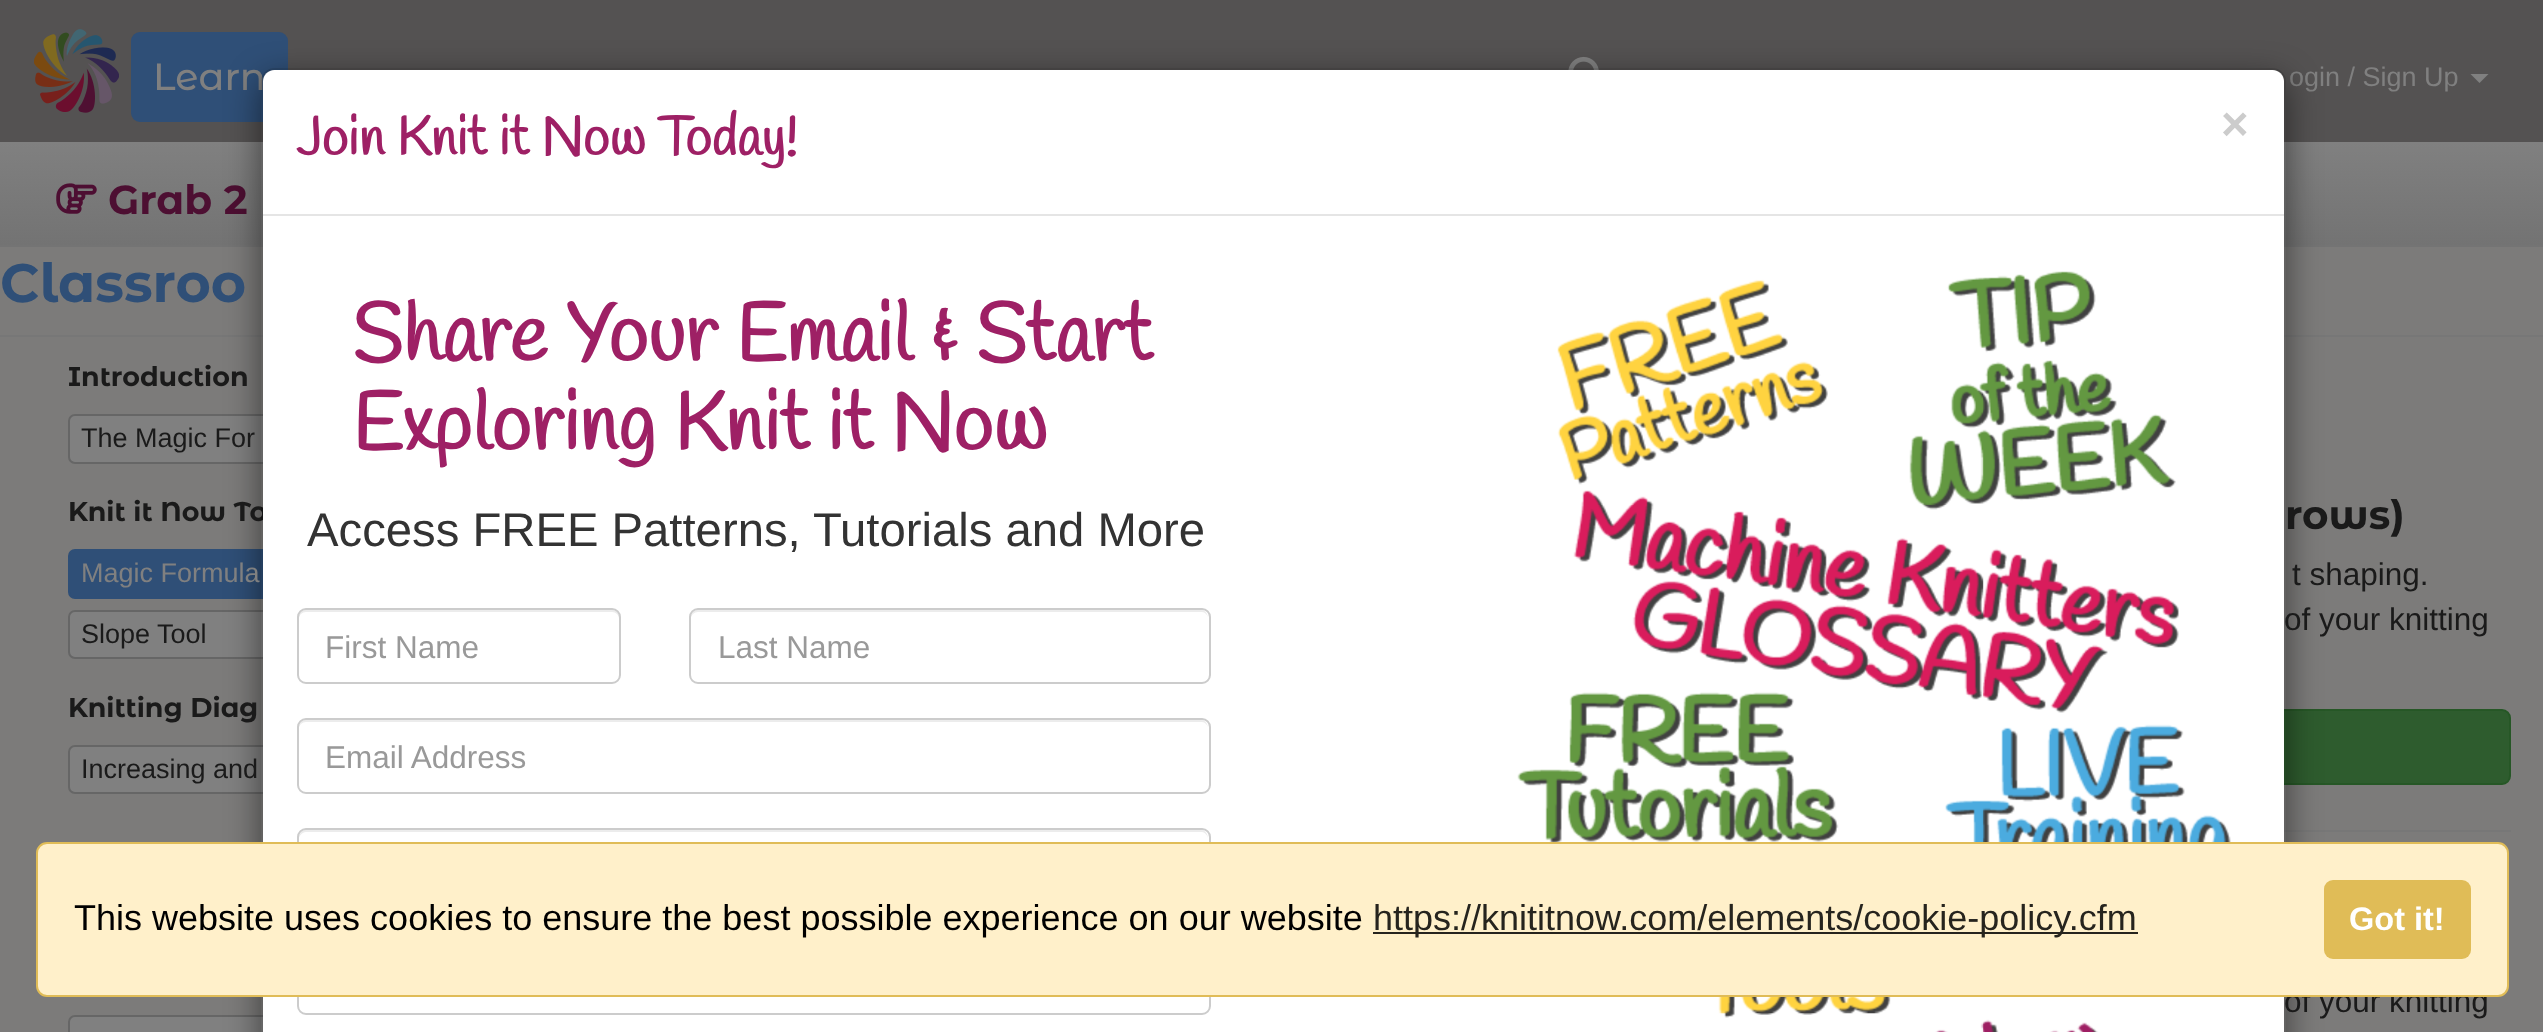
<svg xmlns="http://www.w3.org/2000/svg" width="2543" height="1032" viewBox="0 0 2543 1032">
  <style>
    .t1 { font: 500 38px Montserrat Alternates; fill: #808080; }
    .t2 { font: 27px Liberation Sans; fill: #808080; }
    .t3 { font: bold 40.5px Montserrat Alternates; fill: #4d0f32; }
    .t4 { font: bold 27px Montserrat Alternates; fill: #1a1a1a; }
    .t5 { font: 31.5px Liberation Sans; fill: #1a1a1a; }
    .t6 { font: bold 54px Handlee; fill: #9e2065; }
    .t7 { font: bold 47.25px Liberation Sans; fill: #ccc; }
    .t8 { font: bold 81px Handlee; fill: #9e2065; }
    .t9 { font: 47.25px Liberation Sans; fill: #333; }
    .t10 { font: 31.5px Liberation Sans; fill: #999; }
    .t11 { font: bold 54px Montserrat Alternates; fill: #2f4f77; }
    .t12 { font: 27px Liberation Sans; fill: #1a1a1a; }
    .t13 { font: bold 40.5px Montserrat Alternates; fill: #1a1a1a; }
    .t14 { font: 36px Liberation Sans; fill: #000; }
    .t15 { font: 36px Liberation Sans; fill: #26241e; }
    .t16 { font: bold 32.5px Liberation Sans; fill: #fff; }
  </style>
  <defs>
    <linearGradient id="g1" gradientUnits="userSpaceOnUse" x1="1272" y1="142" x2="1272" y2="245"><stop offset="0" stop-color="#808080"/><stop offset="1" stop-color="#737373"/></linearGradient>
    <clipPath id="clip1"><path d="M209 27H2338V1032H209ZM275 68H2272C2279.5 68 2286 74.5 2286 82V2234C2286 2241.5 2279.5 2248 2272 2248H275C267.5 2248 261 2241.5 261 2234V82C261 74.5 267.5 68 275 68Z" clip-rule="evenodd"/></clipPath>
  </defs>
  <rect width="100%" height="100%" fill="#7c7b7a"/>
  <rect x="0" y="0" width="2543" height="142" fill="#545252"/>
  <rect x="0" y="245" width="2543" height="2" fill="#747474"/>
  <image x="34" y="29" width="85" height="84" href="images/1.png"/>
  <rect x="131" y="32" width="157" height="90" rx="9" fill="#2f4f77"/>
  <text x="153" y="90" class="t1">Learn</text>
  <image x="1568" y="56" width="31" height="14" href="images/2.png"/>
  <text x="2289" y="86" class="t2">ogin / Sign Up</text>
  <path d="M2470.5 74H2488.5L2479.5 83Z" fill="#808080"/>
  <rect x="0" y="142" width="2543" height="103" fill="url(#g1)"/>
  <image x="56" y="183" width="41" height="31" href="images/3.png"/>
  <text x="108" y="214" class="t3">Grab 2</text>
  <rect x="0" y="335" width="2543" height="2" fill="#777"/>
  <rect x="69" y="415" width="499" height="48" rx="6" fill="#808080" stroke="#666" stroke-width="2"/>
  <rect x="69" y="550" width="499" height="48" rx="6" fill="#2f4f77" stroke="#2f4f77" stroke-width="2"/>
  <rect x="69" y="611" width="499" height="47" rx="6" fill="#808080" stroke="#666" stroke-width="2"/>
  <rect x="69" y="746" width="499" height="47" rx="6" fill="#808080" stroke="#666" stroke-width="2"/>
  <rect x="69" y="1016" width="499" height="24" rx="6" fill="#808080" stroke="#666" stroke-width="2"/>
  <rect x="1626" y="710" width="884" height="74" rx="8" fill="#2e5c2e" stroke="#265726" stroke-width="2"/>
  <rect x="2284" y="830" width="227" height="2" fill="#777"/>
  <g clip-path="url(#clip1)">
    <rect x="261" y="79" width="2025" height="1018" rx="14" fill="#00000080" filter="blur(17px)"/>
  </g>
  <text x="68" y="521" class="t4">Knit it Now To</text>
  <path d="M274 70H2273C2279 70 2284 75 2284 81V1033H263V81C263 75 268 70 274 70Z" fill="#fff"/>
  <text x="2284" y="630" class="t5">of your knitting</text>
  <text x="2284" y="1012" class="t5">of your knitting</text>
  <rect x="262" y="69" width="2023" height="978" rx="13" fill="none" stroke="#00000033" stroke-width="2"/>
  <rect x="263" y="214" width="2021" height="2" fill="#e5e5e5"/>
  <text x="296" y="155" class="t6">Join Knit it Now Today!</text>
  <text x="2221" y="140" class="t7">×</text>
  <text x="352" y="361" class="t8">Share Your Email &amp; Start</text>
  <text x="352" y="450" class="t8">Exploring Knit it Now</text>
  <text x="307" y="546" class="t9">Access FREE Patterns, Tutorials and More</text>
  <path d="M306 612H612C616 612 619 615 619 619V617C619 613 616 610 612 610H306C302 610 299 613 299 617V619C299 615 302 612 306 612Z" fill="#ececec"/>
  <rect x="298" y="609" width="322" height="74" rx="8" fill="none" stroke="#ccc" stroke-width="2"/>
  <text x="325" y="658" class="t10">First Name</text>
  <path d="M698 612H1202C1205 612 1208 615 1208 619C1208 615 1206 610 1201 610H698C693 610 691 615 691 619C691 615 694 612 698 612Z" fill="#ececec"/>
  <rect x="690" y="609" width="520" height="74" rx="8" fill="none" stroke="#ccc" stroke-width="2"/>
  <text x="718" y="658" class="t10">Last Name</text>
  <path d="M306 722H1202C1205 722 1208 725 1208 729C1208 725 1206 720 1201 720H306C301 720 299 725 299 729C299 725 302 722 306 722Z" fill="#ececec"/>
  <rect x="298" y="719" width="912" height="74" rx="8" fill="none" stroke="#ccc" stroke-width="2"/>
  <text x="325" y="768" class="t10">Email Address</text>
  <path d="M306 832H1202C1205 832 1208 836 1208 839C1208 835 1206 830 1201 830H306C301 830 299 835 299 839C299 836 302 832 306 832Z" fill="#ececec"/>
  <rect x="298" y="829" width="912" height="75" rx="8" fill="none" stroke="#ccc" stroke-width="2"/>
  <rect x="298" y="939" width="912" height="75" rx="8" fill="none" stroke="#ccc" stroke-width="2"/>
  <image x="1517" y="271" width="714" height="761" href="images/4.png"/>
  <text x="0" y="302" class="t11">Classroo</text>
  <text x="68" y="386" class="t4">Introduction</text>
  <text x="81" y="447" class="t12">The Magic For</text>
  <text x="81" y="582" class="t2">Magic Formula</text>
  <text x="81" y="643" class="t12">Slope Tool</text>
  <text x="68" y="717" class="t4">Knitting Diag</text>
  <text x="81" y="778" class="t12">Increasing and</text>
  <text x="2285" y="529" class="t13">rows)</text>
  <text x="2292" y="585" class="t5">t shaping.</text>
  <rect x="37" y="843" width="2471" height="153" rx="10" fill="#fff0ca" stroke="#e0bc57" stroke-width="2"/>
  <text x="74" y="930" class="t14">This website uses cookies to ensure the best possible experience on our website</text>
  <rect x="1373" y="932" width="765" height="2" fill="#26241e"/>
  <text x="1373" y="930" class="t15">https://knititnow.com/elements/cookie-policy.cfm</text>
  <rect x="2324" y="880" width="147" height="79" rx="9" fill="#e0bc57"/>
  <text x="2349" y="930" class="t16">Got it!</text>
</svg>
